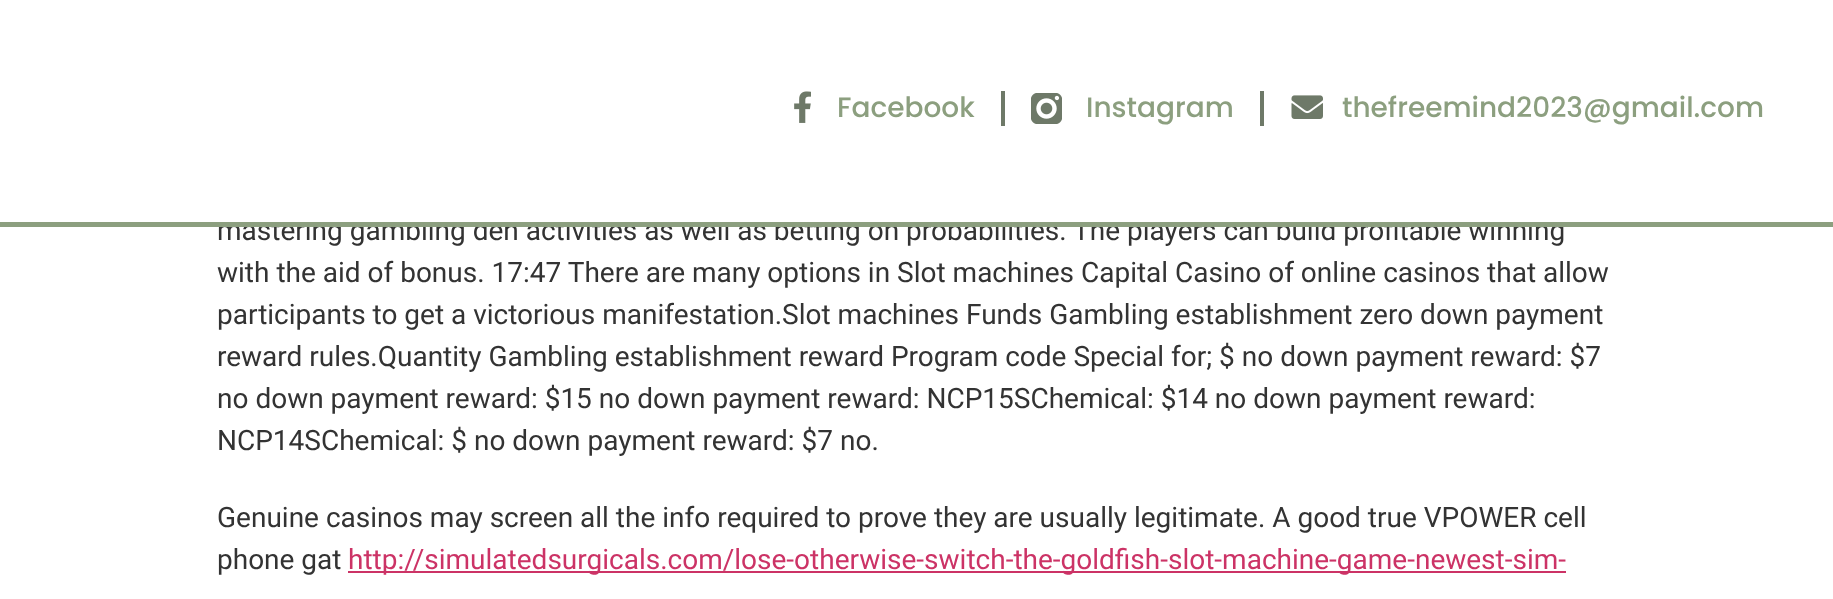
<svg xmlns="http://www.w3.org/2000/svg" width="1833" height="599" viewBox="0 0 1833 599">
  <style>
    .t1 { font: 28px Roboto; fill: #333; }
    .t2 { font: 500 28px Poppins; fill: #8c9f7f; }
    .t3 { font: 28px Roboto; fill: #c36; }
  </style>
  <rect width="100%" height="100%" fill="#fff"/>
  <text x="217" y="240" class="t1">mastering gambling den activities as well as betting on probabilities. The players can build profitable winning</text>
  <rect x="274" y="218" width="1258" height="4" fill="#fff"/>
  <rect x="0" y="222" width="1833" height="5" fill="#8c9f7f"/>
  <image x="794" y="91" width="17" height="32" href="images/1.png"/>
  <text x="837" y="117" class="t2">Facebook</text>
  <rect x="1001" y="91" width="4" height="35" fill="#6e7968"/>
  <image x="1031" y="93" width="31" height="31" href="images/2.png"/>
  <text x="1086" y="117" class="t2">Instagram</text>
  <rect x="1260" y="91" width="4" height="35" fill="#6e7968"/>
  <image x="1291" y="95" width="32" height="24" href="images/3.png"/>
  <text x="1342" y="117" class="t2">thefreemind2023@gmail.com</text>
  <text x="217" y="282" class="t1">with the aid of bonus. 17:47 There are many options in Slot machines Capital Casino of online casinos that allow</text>
  <text x="217" y="324" class="t1">participants to get a victorious manifestation.Slot machines Funds Gambling establishment zero down payment</text>
  <text x="217" y="366" class="t1">reward rules.Quantity Gambling establishment reward Program code Special for; $ no down payment reward: $7</text>
  <text x="217" y="408" class="t1">no down payment reward: $15 no down payment reward: NCP15SChemical: $14 no down payment reward:</text>
  <text x="217" y="450" class="t1">NCP14SChemical: $ no down payment reward: $7 no.</text>
  <text x="217" y="527" class="t1">Genuine casinos may screen all the info required to prove they are usually legitimate. A good true VPOWER cell</text>
  <text x="217" y="569" class="t1">phone gat</text>
  <rect x="348" y="571" width="1218" height="2" fill="#c36"/>
  <text x="348" y="569" class="t3">http://simulatedsurgicals.com/lose-otherwise-switch-the-goldfish-slot-machine-game-newest-sim-</text>
</svg>
